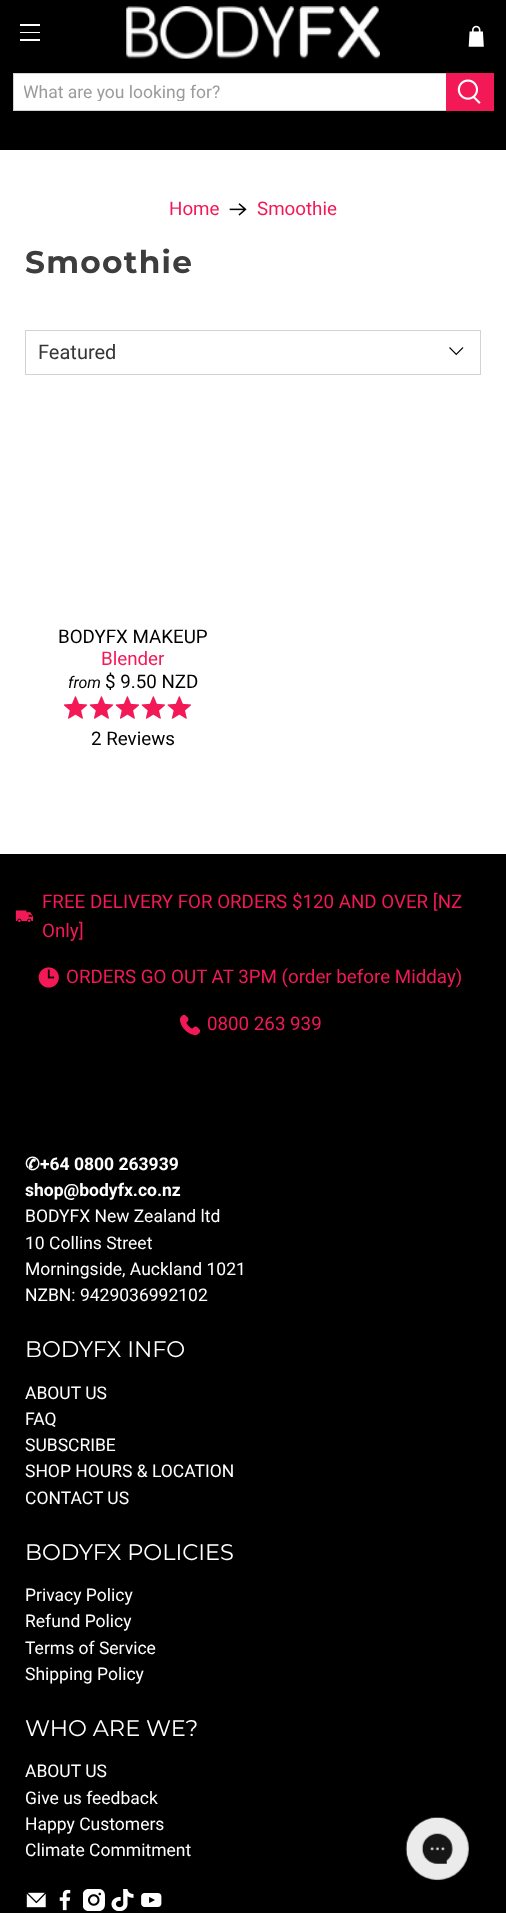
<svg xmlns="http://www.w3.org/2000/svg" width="506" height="1913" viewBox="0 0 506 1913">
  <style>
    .t1 { font: 17.5px Roboto; fill: #9b9b9b; }
    .t2 { font: 18.75px Roboto; fill: #f31956; }
    .t3 { font: bold 31.25px Montserrat; letter-spacing: 1.25px; fill: #3d3d3d; }
    .t4 { font: 20px Roboto; fill: #363636; }
    .t5 { font: 18.75px Roboto; fill: #000; }
    .t6 { font: italic 16px Roboto; fill: #000; }
    .t7 { font: bold 17.5px DejaVu Sans; fill: #fff; }
    .t8 { font: bold 17.5px Roboto; fill: #fff; }
    .t9 { font: 17.5px Roboto; fill: #fff; }
    .t10 { font: 22.5px Montserrat; fill: #fff; }
  </style>
  <defs>
    <clipPath id="clip1"><rect x="24" y="81" width="412" height="20"/></clipPath>
  </defs>
  <rect width="100%" height="100%" fill="#fff"/>
  <rect x="0" y="0" width="506" height="150" fill="#000"/>
  <rect x="20" y="24" width="20" height="2" fill="#fff"/>
  <rect x="20" y="32" width="20" height="1" fill="#fff"/>
  <rect x="20" y="39" width="20" height="2" fill="#fff"/>
  <image x="126" y="6" width="254" height="53" href="images/1.png"/>
  <image x="468" y="25" width="16" height="22" href="images/2.png"/>
  <rect x="14" y="74" width="432" height="36" fill="#fff"/>
  <rect x="13.5" y="73.5" width="434" height="37" fill="none" stroke="#d3d3d3"/>
  <g clip-path="url(#clip1)">
    <text x="23" y="98" class="t1">What are you looking for?</text>
  </g>
  <rect x="446" y="73" width="48" height="38" fill="#f31956"/>
  <image x="457" y="79" width="24" height="25" href="images/3.png"/>
  <text x="169" y="215" class="t2">Home</text>
  <image x="229" y="203" width="18" height="13" href="images/4.png"/>
  <text x="257" y="215" class="t2">Smoothie</text>
  <text x="25" y="273" class="t3">Smoothie</text>
  <rect x="25.5" y="330.5" width="455" height="44" fill="none" stroke="#d3d3d3"/>
  <text x="38" y="359" class="t4">Featured</text>
  <image x="449" y="347" width="15" height="9" href="images/5.png"/>
  <text x="58" y="643" class="t5">BODYFX MAKEUP</text>
  <text x="101" y="665" class="t2">Blender</text>
  <text x="68" y="688" class="t6">from</text>
  <text x="105" y="688" class="t5">$ 9.50 NZD</text>
  <image x="64" y="696" width="127" height="23" href="images/6.png"/>
  <image x="64" y="696" width="127" height="23" href="images/7.png"/>
  <text x="91" y="745" class="t5">2 Reviews</text>
  <rect x="0" y="854" width="506" height="1059" fill="#000"/>
  <image x="15" y="910" width="19" height="12" href="images/8.png"/>
  <text x="42" y="908" class="t2">FREE DELIVERY FOR ORDERS $120 AND OVER [NZ</text>
  <text x="42" y="937" class="t2">Only]</text>
  <image x="38" y="967" width="21" height="21" href="images/9.png"/>
  <text x="66" y="983" class="t2">ORDERS GO OUT AT 3PM (order before Midday)</text>
  <image x="179" y="1014" width="22" height="22" href="images/10.png"/>
  <text x="207" y="1030" class="t2">0800 263 939</text>
  <text x="25" y="1170" class="t7">✆</text>
  <text x="40" y="1170" class="t8">+64 0800 263939</text>
  <text x="25" y="1196" class="t8">shop@bodyfx.co.nz</text>
  <text x="25" y="1222" class="t9">BODYFX New Zealand ltd</text>
  <text x="25" y="1249" class="t9">10 Collins Street</text>
  <text x="25" y="1275" class="t9">Morningside, Auckland 1021</text>
  <text x="25" y="1301" class="t9">NZBN: 9429036992102</text>
  <text x="25" y="1357" class="t10">BODYFX INFO</text>
  <text x="25" y="1399" class="t9">ABOUT US</text>
  <text x="25" y="1425" class="t9">FAQ</text>
  <text x="25" y="1451" class="t9">SUBSCRIBE</text>
  <text x="25" y="1477" class="t9">SHOP HOURS &amp; LOCATION</text>
  <text x="25" y="1504" class="t9">CONTACT US</text>
  <text x="25" y="1560" class="t10">BODYFX POLICIES</text>
  <text x="25" y="1601" class="t9">Privacy Policy</text>
  <text x="25" y="1627" class="t9">Refund Policy</text>
  <text x="25" y="1654" class="t9">Terms of Service</text>
  <text x="25" y="1680" class="t9">Shipping Policy</text>
  <text x="25" y="1736" class="t10">WHO ARE WE?</text>
  <text x="25" y="1777" class="t9">ABOUT US</text>
  <text x="25" y="1804" class="t9">Give us feedback</text>
  <text x="25" y="1830" class="t9">Happy Customers</text>
  <text x="25" y="1856" class="t9">Climate Commitment</text>
  <image x="26" y="1892" width="20" height="16" href="images/11.png"/>
  <image x="59" y="1889" width="12" height="22" href="images/12.png"/>
  <image x="83" y="1889" width="22" height="22" href="images/13.png"/>
  <image x="111" y="1889" width="23" height="22" href="images/14.png"/>
  <image x="141" y="1893" width="21" height="14" href="images/15.png"/>
  <image x="405" y="1817" width="64" height="64" href="images/16.png"/>
</svg>
